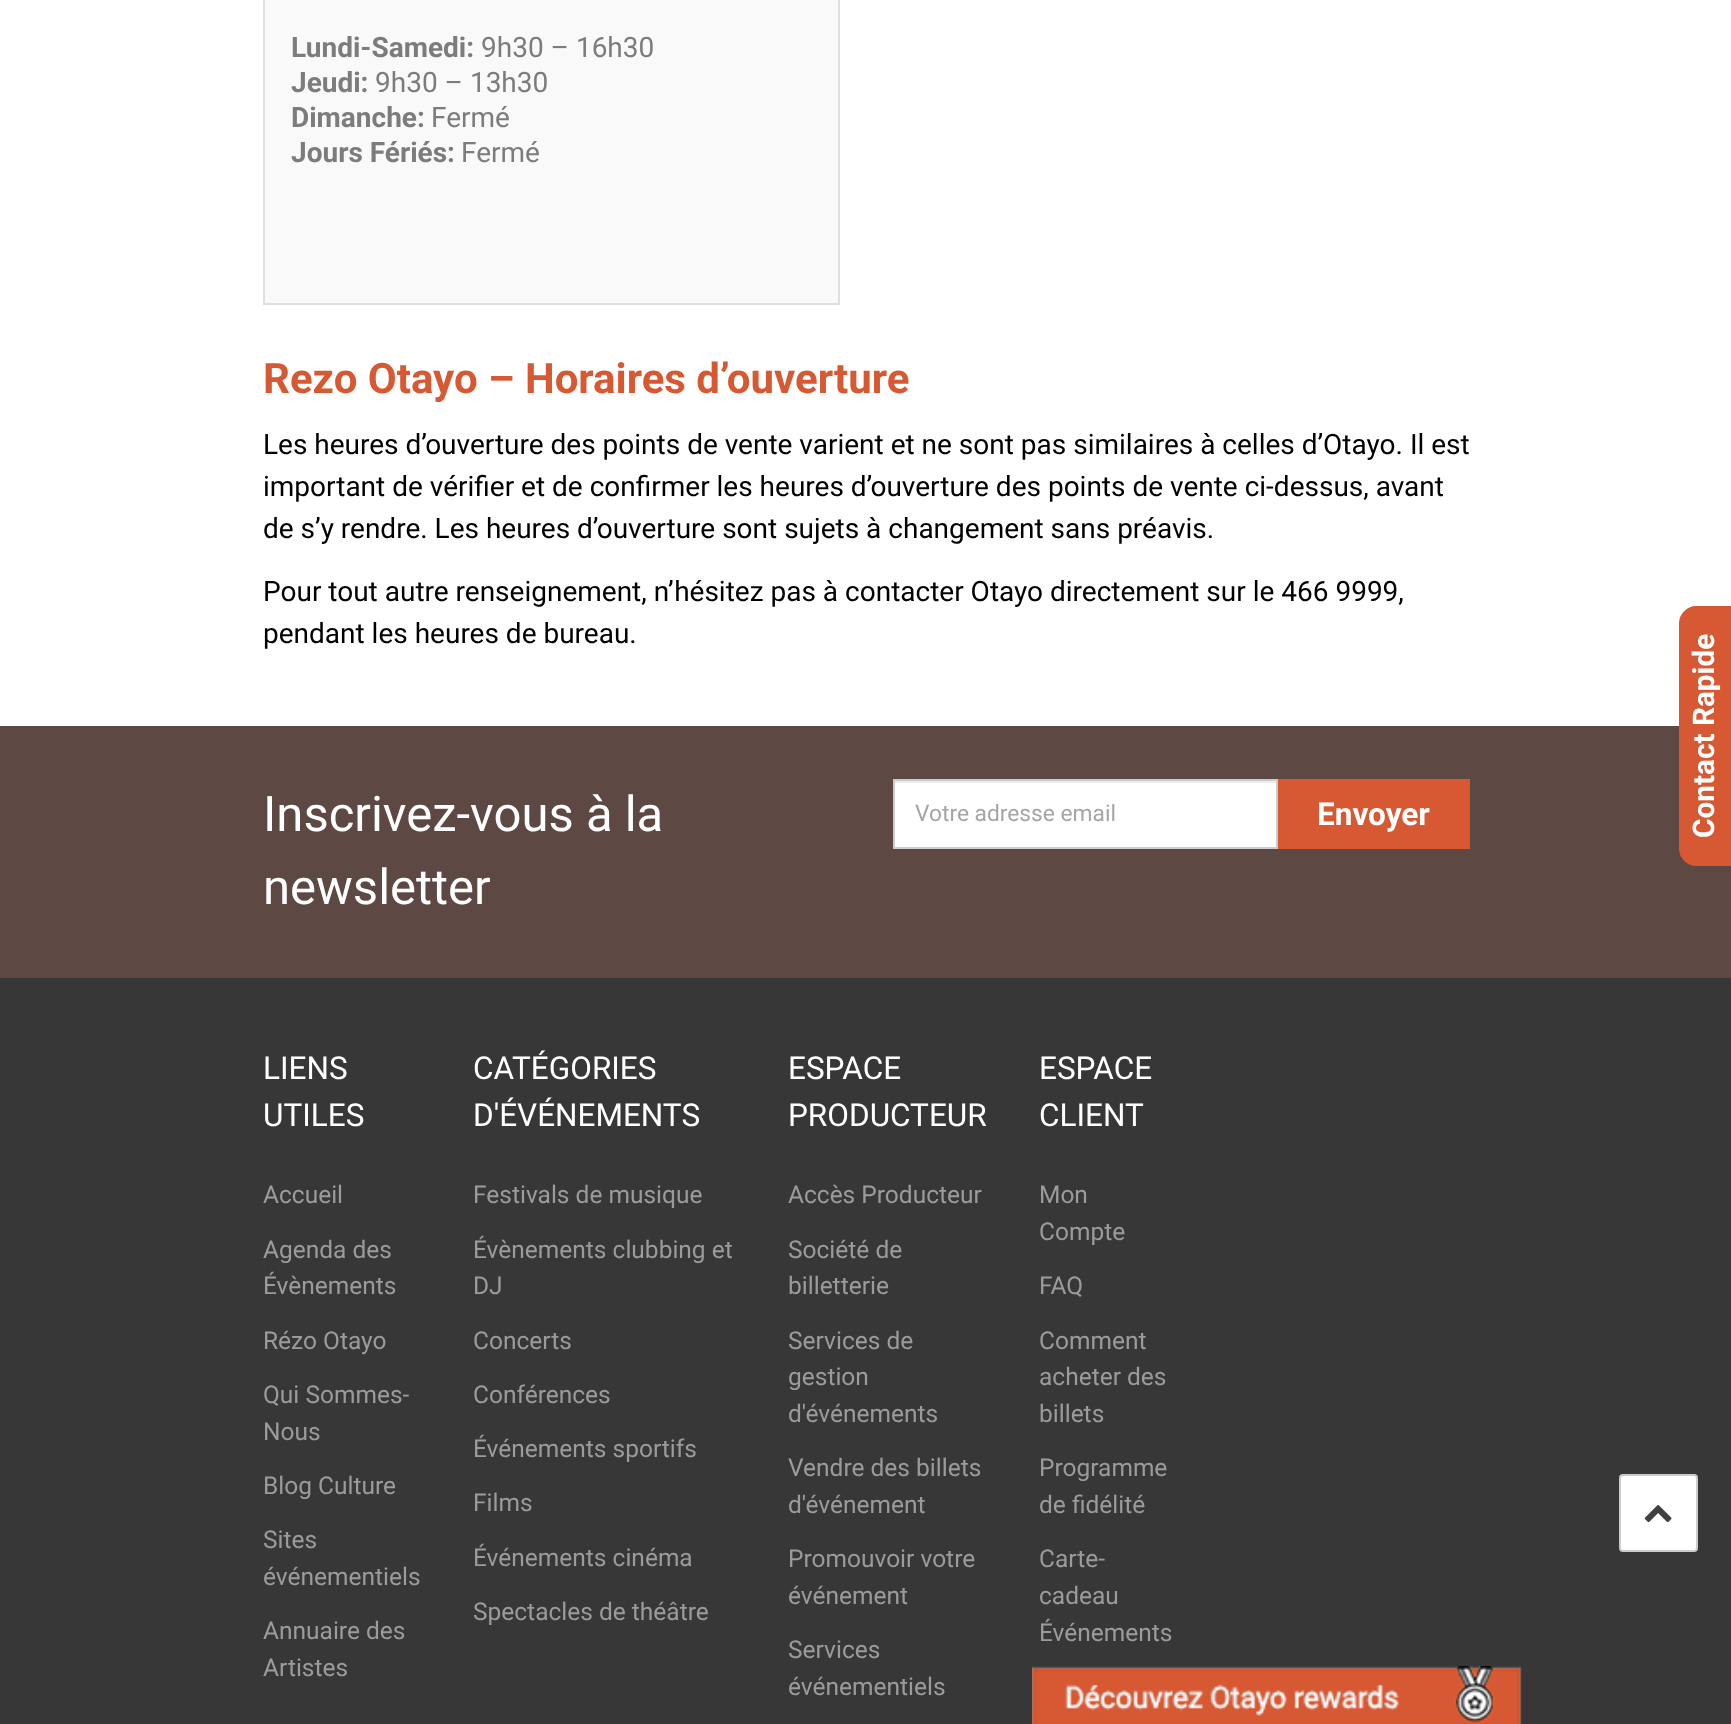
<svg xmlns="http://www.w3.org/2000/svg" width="1731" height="1724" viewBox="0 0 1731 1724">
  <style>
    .t1 { font: bold 28px Roboto; fill: #7c7c7c; }
    .t2 { font: 28px Roboto; fill: #7c7c7c; }
    .t3 { font: bold 42px Roboto; fill: #d75933; }
    .t4 { font: 28px Roboto; fill: #000; }
    .t5 { font: bold 29.75px Roboto; fill: #fff; }
    .t6 { font: 31.5px Roboto; fill: #fff; }
    .t7 { font: 24.5px Roboto; fill: #9b9b9b; }
    .t8 { font: 49px Roboto; fill: #fff; }
    .t9 { font: 22.75px Roboto; fill: #a5a5a5; }
    .t10 { font: bold 31.5px Roboto; fill: #fff; }
  </style>
  <rect width="100%" height="100%" fill="#fff"/>
  <rect x="264" y="-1" width="575" height="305" fill="#f9f9f9" stroke="#e2dedd" stroke-width="2"/>
  <text x="291" y="57" class="t1">Lundi-Samedi:</text>
  <text x="481" y="57" class="t2">9h30 – 16h30</text>
  <text x="291" y="92" class="t1">Jeudi:</text>
  <text x="375" y="92" class="t2">9h30 – 13h30</text>
  <text x="291" y="127" class="t1">Dimanche:</text>
  <text x="431" y="127" class="t2">Fermé</text>
  <text x="291" y="162" class="t1">Jours Fériés:</text>
  <text x="461" y="162" class="t2">Fermé</text>
  <text x="263" y="393" class="t3">Rezo Otayo – Horaires d’ouverture</text>
  <text x="263" y="454" class="t4">Les heures d’ouverture des points de vente varient et ne sont pas similaires à celles d’Otayo. Il est</text>
  <text x="263" y="496" class="t4">important de vérifier et de confirmer les heures d’ouverture des points de vente ci-dessus, avant</text>
  <text x="263" y="538" class="t4">de s’y rendre. Les heures d’ouverture sont sujets à changement sans préavis.</text>
  <text x="263" y="601" class="t4">Pour tout autre renseignement, n’hésitez pas à contacter Otayo directement sur le 466 9999,</text>
  <text x="263" y="643" class="t4">pendant les heures de bureau.</text>
  <rect x="0" y="978" width="1731" height="746" fill="#373737"/>
  <rect x="0" y="726" width="1731" height="252" fill="#5d4843"/>
  <path d="M1679 849V623C1679 614 1687 606 1696 606H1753C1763 606 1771 614 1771 623V849C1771 858 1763 866 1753 866H1696C1687 866 1679 858 1679 849Z" fill="#d75933"/>
  <text x="1714" y="838" transform="rotate(-90 1714 838)" class="t5">Contact Rapide</text>
  <text x="263" y="1079" class="t6">LIENS</text>
  <text x="263" y="1126" class="t6">UTILES</text>
  <text x="263" y="1203" class="t7">Accueil</text>
  <text x="263" y="1258" class="t7">Agenda des</text>
  <text x="263" y="1294" class="t7">Évènements</text>
  <text x="263" y="1349" class="t7">Rézo Otayo</text>
  <text x="263" y="1403" class="t7">Qui Sommes-</text>
  <text x="263" y="1440" class="t7">Nous</text>
  <text x="263" y="1494" class="t7">Blog Culture</text>
  <text x="263" y="1548" class="t7">Sites</text>
  <text x="263" y="1585" class="t7">événementiels</text>
  <text x="263" y="1639" class="t7">Annuaire des</text>
  <text x="263" y="1676" class="t7">Artistes</text>
  <text x="473" y="1079" class="t6">CATÉGORIES</text>
  <text x="473" y="1126" class="t6">D'ÉVÉNEMENTS</text>
  <text x="473" y="1203" class="t7">Festivals de musique</text>
  <text x="473" y="1258" class="t7">Évènements clubbing et</text>
  <text x="473" y="1294" class="t7">DJ</text>
  <text x="473" y="1349" class="t7">Concerts</text>
  <text x="473" y="1403" class="t7">Conférences</text>
  <text x="473" y="1457" class="t7">Événements sportifs</text>
  <text x="473" y="1511" class="t7">Films</text>
  <text x="473" y="1566" class="t7">Événements cinéma</text>
  <text x="473" y="1620" class="t7">Spectacles de théâtre</text>
  <text x="788" y="1079" class="t6">ESPACE</text>
  <text x="788" y="1126" class="t6">PRODUCTEUR</text>
  <text x="788" y="1203" class="t7">Accès Producteur</text>
  <text x="788" y="1258" class="t7">Société de</text>
  <text x="788" y="1294" class="t7">billetterie</text>
  <text x="788" y="1349" class="t7">Services de</text>
  <text x="788" y="1385" class="t7">gestion</text>
  <text x="788" y="1422" class="t7">d'événements</text>
  <text x="788" y="1476" class="t7">Vendre des billets</text>
  <text x="788" y="1513" class="t7">d'événement</text>
  <text x="788" y="1567" class="t7">Promouvoir votre</text>
  <text x="788" y="1604" class="t7">événement</text>
  <text x="788" y="1658" class="t7">Services</text>
  <text x="788" y="1695" class="t7">événementiels</text>
  <text x="1039" y="1079" class="t6">ESPACE</text>
  <text x="1039" y="1126" class="t6">CLIENT</text>
  <text x="1039" y="1203" class="t7">Mon</text>
  <text x="1039" y="1240" class="t7">Compte</text>
  <text x="1039" y="1294" class="t7">FAQ</text>
  <text x="1039" y="1349" class="t7">Comment</text>
  <text x="1039" y="1385" class="t7">acheter des</text>
  <text x="1039" y="1422" class="t7">billets</text>
  <text x="1039" y="1476" class="t7">Programme</text>
  <text x="1039" y="1513" class="t7">de fidélité</text>
  <text x="1039" y="1567" class="t7">Carte-</text>
  <text x="1039" y="1604" class="t7">cadeau</text>
  <text x="1039" y="1641" class="t7">Événements</text>
  <rect x="1620" y="1475" width="77" height="76" rx="3" fill="#fff" stroke="#cbcbcb" stroke-width="2"/>
  <image x="1644" y="1505" width="28" height="18" href="images/1.png"/>
  <text x="263" y="831" class="t8">Inscrivez-vous à la</text>
  <text x="263" y="904" class="t8">newsletter</text>
  <rect x="895" y="783" width="381" height="64" fill="#fff"/>
  <rect x="894" y="781" width="382" height="2" fill="#ececec"/>
  <rect x="894" y="780" width="383" height="68" fill="none" stroke="#ccc" stroke-width="2"/>
  <text x="915" y="821" class="t9">Votre adresse email</text>
  <rect x="1278" y="779" width="192" height="70" fill="#d75933"/>
  <text x="1317" y="825" class="t10">Envoyer</text>
  <image x="1032" y="1666" width="490" height="58" href="images/2.png"/>
</svg>
